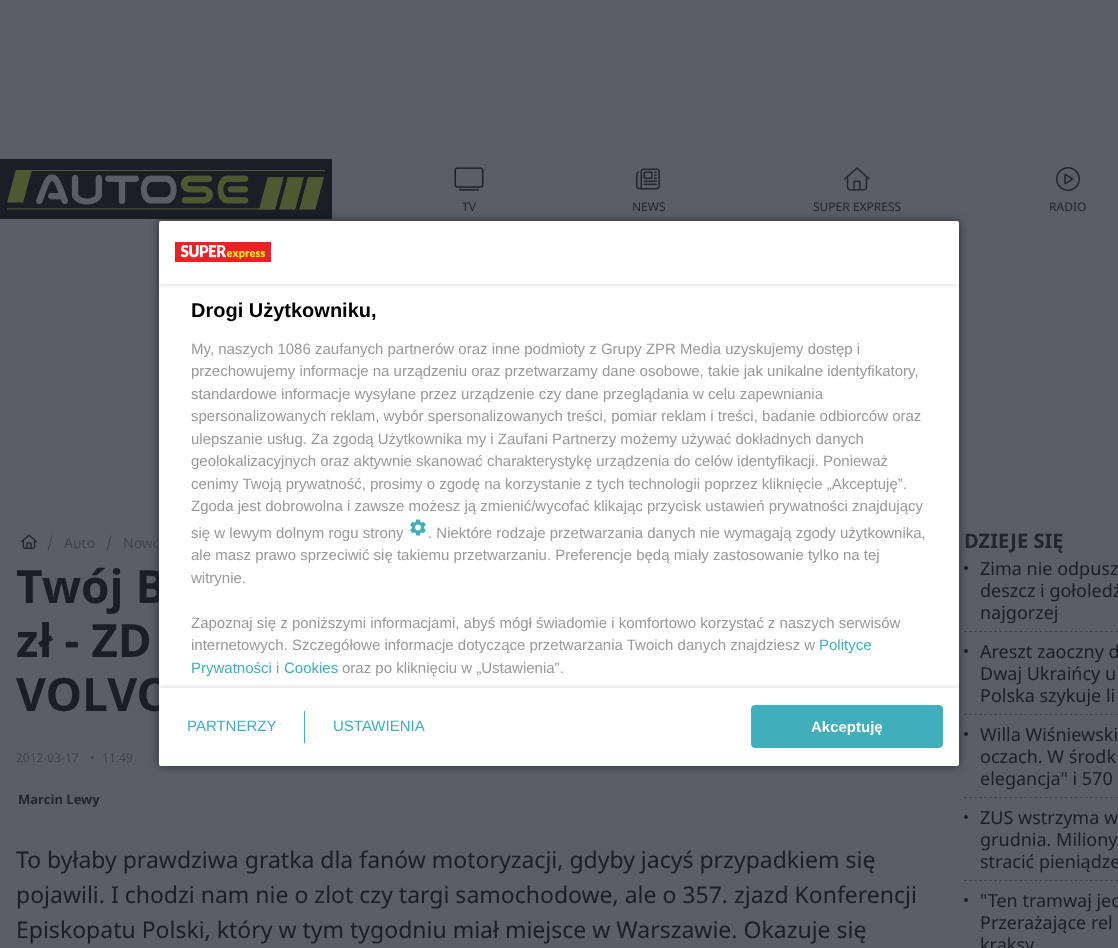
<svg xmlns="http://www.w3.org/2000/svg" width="1118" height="948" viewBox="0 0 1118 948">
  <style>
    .t1 { font: 12px Noto Sans; fill: #212730; }
    .t2 { font: 14px Noto Sans; fill: #3f454d; }
    .t3 { font: bold 46px Noto Sans; fill: #191f27; }
    .t4 { font: bold 20px Liberation Sans; fill: #000; }
    .t5 { font: 15px Liberation Sans; fill: #999; }
    .t6 { font: 15px Liberation Sans; fill: #41afbb; }
    .t7 { font: bold 15px Liberation Sans; fill: #fff; }
    .t8 { font: 12px Noto Sans; fill: #3f454d; }
    .t9 { font: bold 13px Noto Sans; fill: #212730; }
    .t10 { font: 23px Noto Sans; fill: #191f27; }
    .t11 { font: bold 20px Noto Sans; fill: #212730; }
    .t12 { font: 18px Noto Sans; fill: #191f27; }
  </style>
  <defs>
    <clipPath id="clip1"><path d="M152 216H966V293H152ZM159 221H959V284H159Z" clip-rule="evenodd"/></clipPath>
    <clipPath id="clip2"><rect x="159" y="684" width="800" height="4"/></clipPath>
    <clipPath id="clip3"><rect x="980" y="557" width="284" height="66"/></clipPath>
    <clipPath id="clip4"><rect x="980" y="640" width="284" height="66"/></clipPath>
    <clipPath id="clip5"><rect x="980" y="723" width="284" height="66"/></clipPath>
  </defs>
  <rect width="100%" height="100%" fill="#595f67"/>
  <image x="0" y="159" width="332" height="60" href="images/1.png"/>
  <image x="454" y="167" width="30" height="24" href="images/2.png"/>
  <text x="462" y="211" class="t1">TV</text>
  <image x="636" y="168" width="24" height="22" href="images/3.png"/>
  <text x="632" y="211" class="t1">NEWS</text>
  <image x="844" y="167" width="26" height="24" href="images/4.png"/>
  <text x="813" y="211" class="t1">SUPER EXPRESS</text>
  <image x="1056" y="167" width="24" height="24" href="images/5.png"/>
  <text x="1049" y="211" class="t1">RADIO</text>
  <path d="M964 631.5H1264" fill="none" stroke="#3f454d" stroke-dasharray="3 2.03"/>
  <circle cx="966" cy="568" r="2" fill="#191f27"/>
  <path d="M964 714.5H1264" fill="none" stroke="#3f454d" stroke-dasharray="3 2.03"/>
  <circle cx="966" cy="651" r="2" fill="#191f27"/>
  <circle cx="966" cy="734" r="2" fill="#191f27"/>
  <rect x="159" y="221" width="800" height="545" rx="2" fill="#00000080" filter="blur(5px)"/>
  <text x="123" y="548" class="t2">Nowo</text>
  <text x="16" y="603" class="t3">Twój B</text>
  <text x="16" y="711" class="t3">VOLVO</text>
  <rect x="159" y="221" width="800" height="545" rx="2" fill="#fff"/>
  <g clip-path="url(#clip1)">
    <rect x="159" y="223" width="800" height="63" fill="#0000001a" filter="blur(2px)"/>
  </g>
  <image x="175" y="242" width="96" height="20" href="images/6.png"/>
  <text x="191" y="317" class="t4">Drogi Użytkowniku,</text>
  <text x="191" y="354" class="t5">My, naszych 1086 zaufanych partnerów oraz inne podmioty z Grupy ZPR Media uzyskujemy dostęp i</text>
  <text x="191" y="376" class="t5">przechowujemy informacje na urządzeniu oraz przetwarzamy dane osobowe, takie jak unikalne identyfikatory,</text>
  <text x="191" y="399" class="t5">standardowe informacje wysyłane przez urządzenie czy dane przeglądania w celu zapewniania</text>
  <text x="191" y="421" class="t5">spersonalizowanych reklam, wybór spersonalizowanych treści, pomiar reklam i treści, badanie odbiorców oraz</text>
  <text x="191" y="444" class="t5">ulepszanie usług. Za zgodą Użytkownika my i Zaufani Partnerzy możemy używać dokładnych danych</text>
  <text x="191" y="466" class="t5">geolokalizacyjnych oraz aktywnie skanować charakterystykę urządzenia do celów identyfikacji. Ponieważ</text>
  <text x="191" y="489" class="t5">cenimy Twoją prywatność, prosimy o zgodę na korzystanie z tych technologii poprzez kliknięcie „Akceptuję”.</text>
  <text x="191" y="511" class="t5">Zgoda jest dobrowolna i zawsze możesz ją zmienić/wycofać klikając przycisk ustawień prywatności znajdujący</text>
  <text x="191" y="538" class="t5">się w lewym dolnym rogu strony</text>
  <image x="410" y="519" width="16" height="17" href="images/7.png"/>
  <text x="428" y="538" class="t5">. Niektóre rodzaje przetwarzania danych nie wymagają zgody użytkownika,</text>
  <text x="191" y="560" class="t5">ale masz prawo sprzeciwić się takiemu przetwarzaniu. Preferencje będą miały zastosowanie tylko na tej</text>
  <text x="191" y="583" class="t5">witrynie.</text>
  <text x="191" y="628" class="t5">Zapoznaj się z poniższymi informacjami, abyś mógł świadomie i komfortowo korzystać z naszych serwisów</text>
  <text x="191" y="650" class="t5">internetowych. Szczegółowe informacje dotyczące przetwarzania Twoich danych znajdziesz w</text>
  <text x="819" y="650" class="t6">Polityce</text>
  <text x="191" y="673" class="t6">Prywatności</text>
  <text x="276" y="673" class="t5">i</text>
  <text x="284" y="673" class="t6">Cookies</text>
  <text x="342" y="673" class="t5">oraz po kliknięciu w „Ustawienia”.</text>
  <g clip-path="url(#clip2)">
    <rect x="159" y="686" width="800" height="78" fill="#0000001a" filter="blur(2px)"/>
  </g>
  <text x="187" y="731" class="t6">PARTNERZY</text>
  <rect x="304" y="711" width="1" height="32" fill="#41afbb"/>
  <text x="333" y="731" class="t6">USTAWIENIA</text>
  <rect x="751.5" y="705.5" width="191" height="42" rx="3.5" fill="#41afbb" stroke="#41afbb"/>
  <text x="811" y="732" class="t7">Akceptuję</text>
  <image x="20" y="534" width="17" height="15" href="images/8.png"/>
  <path d="M52.5 535.5L48.5 550.5H47.5L51.5 535.5Z" fill="#3c424a"/>
  <text x="64" y="548" class="t2">Auto</text>
  <path d="M111.5 535.5L107.5 550.5H106.5L110.5 535.5Z" fill="#3c424a"/>
  <text x="16" y="657" class="t3">zł - ZD</text>
  <text x="16" y="762" class="t8">2012-03-17</text>
  <text x="90" y="762" class="t8">•</text>
  <text x="102" y="762" class="t8">11:49</text>
  <text x="18" y="804" class="t9">Marcin Lewy</text>
  <text x="16" y="868" class="t10">To byłaby prawdziwa gratka dla fanów motoryzacji, gdyby jacyś przypadkiem się</text>
  <text x="16" y="903" class="t10">pojawili. I chodzi nam nie o zlot czy targi samochodowe, ale o 357. zjazd Konferencji</text>
  <text x="16" y="938" class="t10">Episkopatu Polski, który w tym tygodniu miał miejsce w Warszawie. Okazuje się</text>
  <text x="964" y="548" class="t11">DZIEJE SIĘ</text>
  <text x="980" y="575" class="t12">Zima nie odpusz</text>
  <text x="980" y="597" class="t12">deszcz i gołoledź</text>
  <g clip-path="url(#clip3)">
    <text x="980" y="619" class="t12">najgorzej</text>
  </g>
  <text x="980" y="658" class="t12">Areszt zaoczny d</text>
  <text x="980" y="680" class="t12">Dwaj Ukraińcy u</text>
  <g clip-path="url(#clip4)">
    <text x="980" y="702" class="t12">Polska szykuje li</text>
  </g>
  <path d="M964 797.5H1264" fill="none" stroke="#3f454d" stroke-dasharray="3 2.03"/>
  <text x="980" y="741" class="t12">Willa Wiśniewski</text>
  <text x="980" y="763" class="t12">oczach. W środk</text>
  <g clip-path="url(#clip5)">
    <text x="980" y="785" class="t12">elegancja" i 570</text>
  </g>
  <path d="M964 880.5H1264" fill="none" stroke="#3f454d" stroke-dasharray="3 2.03"/>
  <circle cx="966" cy="817" r="2" fill="#191f27"/>
  <text x="980" y="824" class="t12">ZUS wstrzyma w</text>
  <text x="980" y="846" class="t12">grudnia. Miliony</text>
  <text x="980" y="868" class="t12">stracić pieniądze</text>
  <circle cx="966" cy="900" r="2" fill="#191f27"/>
  <text x="980" y="907" class="t12">"Ten tramwaj jec</text>
  <text x="980" y="929" class="t12">Przerażające rel</text>
  <text x="980" y="951" class="t12">kraksy</text>
</svg>
